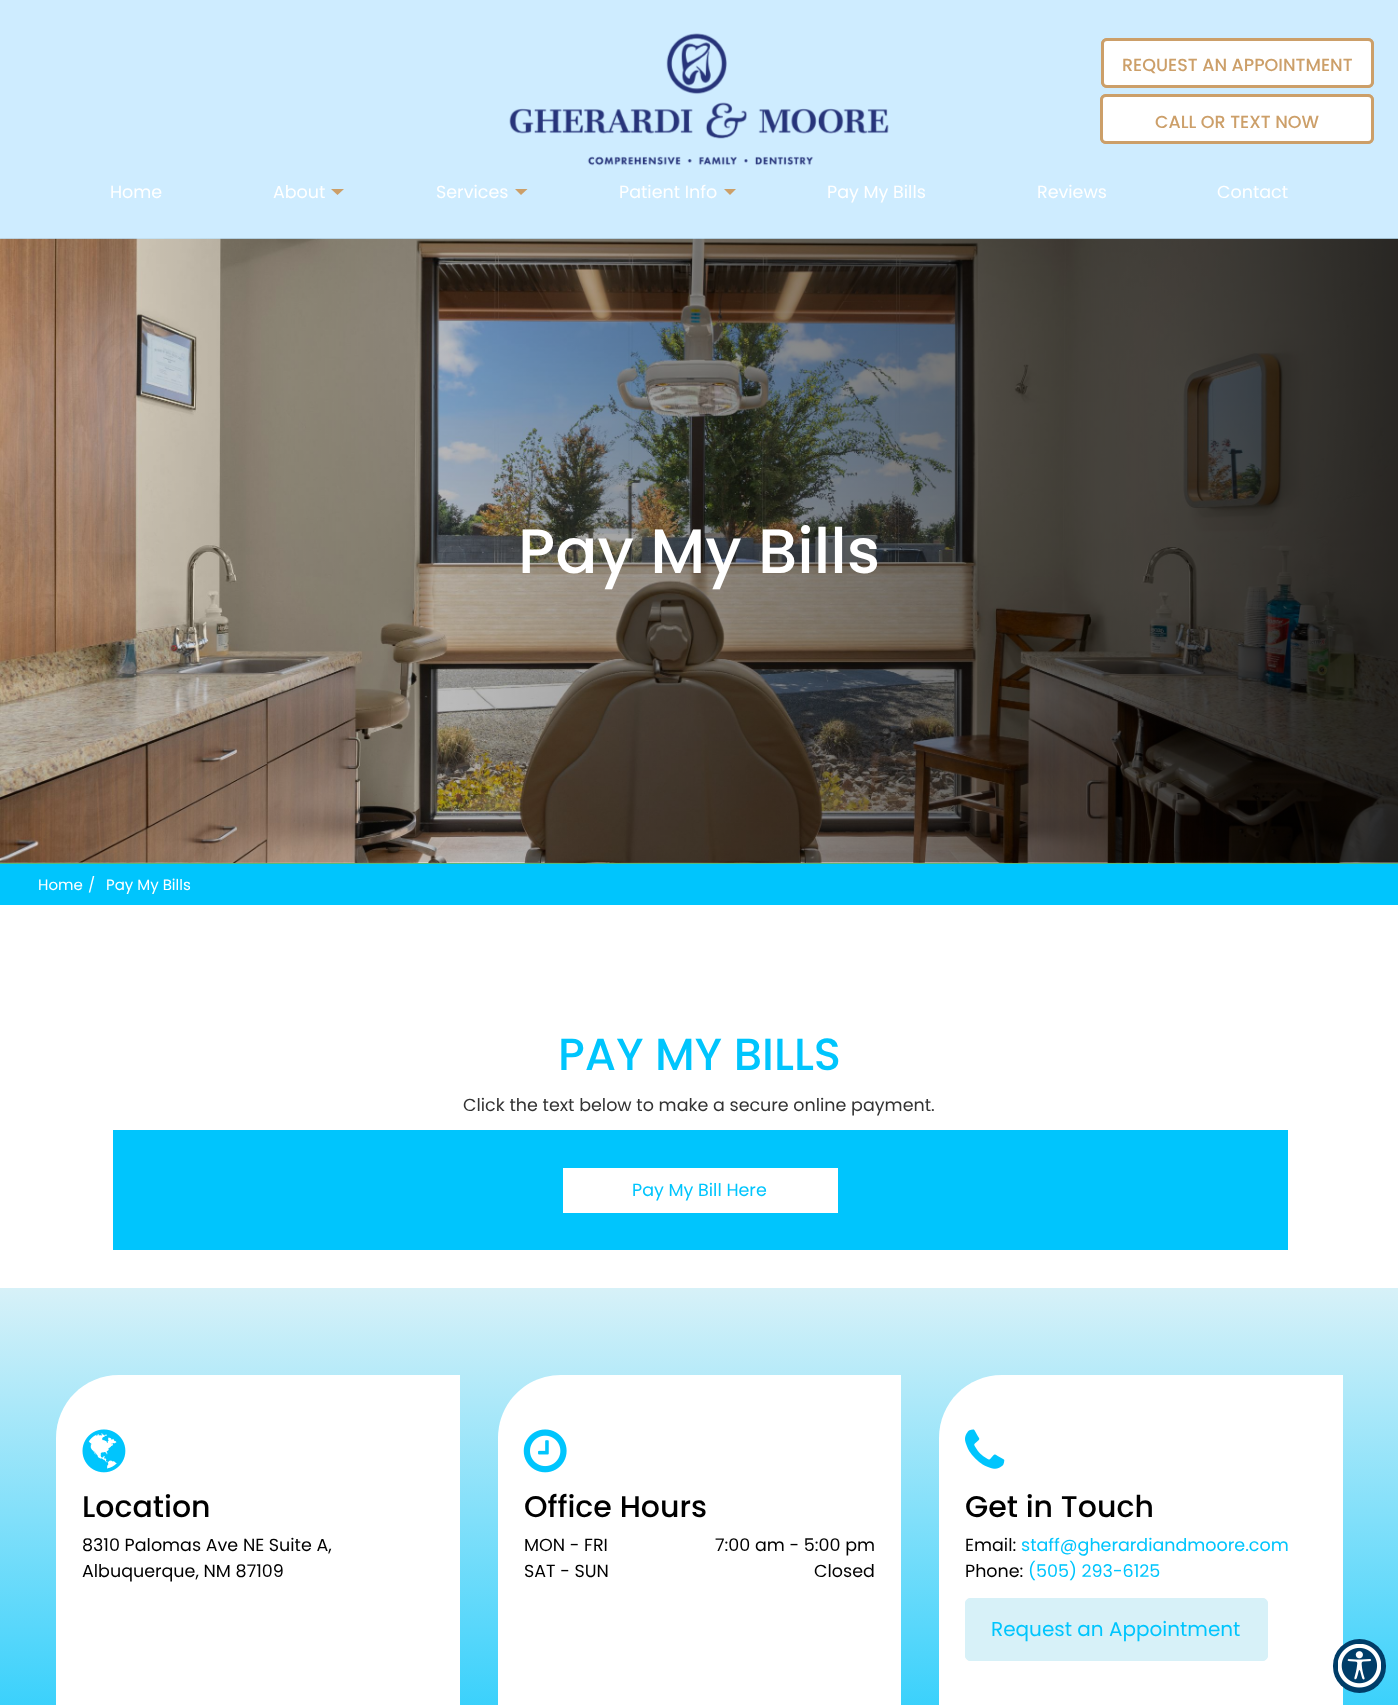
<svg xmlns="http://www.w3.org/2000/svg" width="1398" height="1705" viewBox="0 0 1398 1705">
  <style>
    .t1 { font: 500 17.5px Poppins; fill: #cc9f69; }
    .t2 { font: 17.5px Poppins; fill: #fff; }
    .t3 { font: 500 62.5px Poppins; fill: #fff; }
    .t4 { font: 15px Poppins; fill: #fff; }
    .t5 { font: 500 45px Poppins; fill: #00c5fd; }
    .t6 { font: 17.5px Poppins; fill: #333; }
    .t7 { font: 17.5px Poppins; fill: #00c5fd; }
    .t8 { font: 500 30px Poppins; fill: #000; }
    .t9 { font: 17.5px Poppins; fill: #000; }
    .t10 { font: 20px Poppins; fill: #00c5fd; }
  </style>
  <defs>
    <linearGradient id="g1" gradientUnits="userSpaceOnUse" x1="699" y1="1288" x2="699" y2="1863"><stop offset="0" stop-color="#d7f1f8"/><stop offset="1" stop-color="#00c5fd"/></linearGradient>
  </defs>
  <rect width="100%" height="100%" fill="#fff"/>
  <image x="0" y="238" width="1398" height="625" href="images/2.png"/>
  <rect x="0" y="0" width="1398" height="239" fill="#33aeff3d"/>
  <rect x="1102.5" y="39.5" width="270" height="47" rx="4.5" fill="none" stroke="#cc9f69" stroke-width="3"/>
  <rect x="1101.5" y="95.5" width="271" height="47" rx="4.5" fill="none" stroke="#cc9f69" stroke-width="3"/>
  <rect x="1102.5" y="39.5" width="270" height="47" rx="4.5" fill="#fff" stroke="#cc9f69" stroke-width="3"/>
  <text x="1122" y="71" class="t1">REQUEST AN APPOINTMENT</text>
  <rect x="1101.5" y="95.5" width="271" height="47" rx="4.5" fill="#fff" stroke="#cc9f69" stroke-width="3"/>
  <text x="1155" y="128" class="t1">CALL OR TEXT NOW</text>
  <image x="509" y="33" width="380" height="133" href="images/1.png"/>
  <text x="110" y="198" class="t2">Home</text>
  <text x="273" y="198" class="t2">About</text>
  <path d="M331 189H344L337.5 195Z" fill="#cc9f69"/>
  <text x="436" y="198" class="t2">Services</text>
  <path d="M515 189H527.5L521 195Z" fill="#cc9f69"/>
  <text x="619" y="198" class="t2">Patient Info</text>
  <path d="M724 189H736L730 195Z" fill="#cc9f69"/>
  <text x="827" y="198" class="t2">Pay My Bills</text>
  <text x="1037" y="198" class="t2">Reviews</text>
  <text x="1217" y="198" class="t2">Contact</text>
  <rect x="0" y="863" width="1398" height="1" fill="#55ba7c"/>
  <text x="518" y="573" class="t3">Pay My Bills</text>
  <rect x="0" y="864" width="1398" height="41" fill="#00c5fd"/>
  <text x="38" y="890" class="t4">Home</text>
  <text x="88" y="890" class="t4">/</text>
  <text x="106" y="890" class="t4">Pay My Bills</text>
  <text x="558" y="1070" class="t5">PAY MY BILLS</text>
  <text x="463" y="1111" class="t6">Click the text below to make a secure online payment.</text>
  <rect x="113" y="1130" width="1175" height="120" fill="#00c5fd"/>
  <rect x="563" y="1168" width="275" height="45" fill="#fff"/>
  <text x="632" y="1196" class="t7">Pay My Bill Here</text>
  <rect x="0" y="1288" width="1398" height="417" fill="url(#g1)"/>
  <path d="M119 1375H460V1705C460 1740 432 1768 397 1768H56V1438C56 1403 84 1375 119 1375Z" fill="#fff"/>
  <image x="82" y="1429" width="44" height="44" href="images/3.png"/>
  <text x="82" y="1517" class="t8">Location</text>
  <text x="82" y="1551" class="t9">8310 Palomas Ave NE Suite A,</text>
  <text x="82" y="1577" class="t9">Albuquerque, NM 87109</text>
  <path d="M561 1375H901V1705C901 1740 873 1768 838 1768H498V1438C498 1403 526 1375 561 1375Z" fill="#fff"/>
  <image x="523" y="1429" width="44" height="44" href="images/4.png"/>
  <text x="524" y="1517" class="t8">Office Hours</text>
  <text x="524" y="1551" class="t9">MON - FRI</text>
  <text x="715" y="1551" class="t9">7:00 am - 5:00 pm</text>
  <text x="524" y="1577" class="t9">SAT - SUN</text>
  <text x="814" y="1577" class="t9">Closed</text>
  <path d="M1002 1375H1343V1705C1343 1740 1315 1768 1280 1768H939V1438C939 1403 967 1375 1002 1375Z" fill="#fff"/>
  <image x="965" y="1429" width="40" height="40" href="images/5.png"/>
  <text x="965" y="1517" class="t8">Get in Touch</text>
  <text x="965" y="1551" class="t9">Email:</text>
  <text x="1021" y="1551" class="t7">staff@gherardiandmoore.com</text>
  <text x="965" y="1577" class="t9">Phone:</text>
  <text x="1028" y="1577" class="t7">(505) 293-6125</text>
  <rect x="965.5" y="1598.5" width="302" height="62" rx="4.5" fill="#d7f1f8" stroke="#d7f1f8"/>
  <text x="991" y="1636" class="t10">Request an Appointment</text>
  <rect x="1333" y="1639" width="53" height="54" rx="26.5" fill="#003d68"/>
  <image x="1338" y="1644" width="43" height="44" href="images/6.png"/>
</svg>
